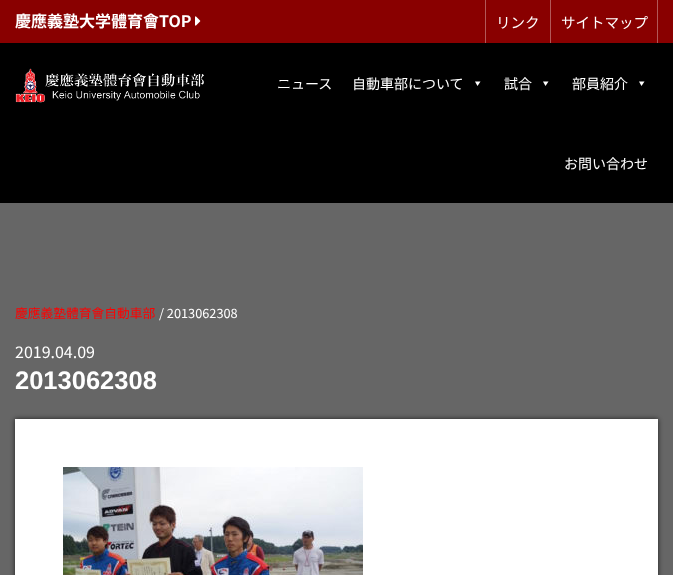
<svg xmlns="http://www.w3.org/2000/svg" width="673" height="575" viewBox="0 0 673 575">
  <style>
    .t1 { font: bold 16px Noto Sans JP; fill: #fff; }
    .t2 { font: 14.5px Noto Sans JP; fill: #fff; }
    .t3 { font: 14px Noto Sans JP; fill: #fff; }
    .t4 { font: 12.75px Noto Sans JP; fill: #f00; }
    .t5 { font: 12.75px Noto Sans JP; fill: #fff; }
    .t6 { font: 16px Noto Sans JP; fill: #fff; }
    .t7 { font: bold 25.5px Liberation Sans; fill: #fff; }
  </style>
  <rect width="100%" height="100%" fill="#666"/>
  <rect x="0" y="43" width="673" height="160" fill="#000"/>
  <rect x="0" y="0" width="673" height="43" fill="#890000"/>
  <text x="15" y="27" class="t1">慶應義塾大学體育會TOP</text>
  <image x="195" y="16" width="6" height="10" href="images/1.png"/>
  <rect x="485" y="0" width="1" height="43" fill="#b25858"/>
  <text x="496" y="28" class="t2">リンク</text>
  <rect x="657" y="0" width="1" height="43" fill="#b25858"/>
  <rect x="550" y="0" width="1" height="43" fill="#b25858"/>
  <text x="561" y="28" class="t2">サイトマップ</text>
  <image x="15" y="68" width="189" height="35" href="images/2.png"/>
  <text x="277" y="89" class="t3">ニュース</text>
  <text x="352" y="89" class="t3">自動車部について</text>
  <path d="M480.5 81.5L477.5 86L475 81.5Z" fill="#fff"/>
  <text x="504" y="89" class="t3">試合</text>
  <path d="M548.5 81.5L545.5 86L543 81.5Z" fill="#fff"/>
  <text x="572" y="89" class="t3">部員紹介</text>
  <path d="M644.5 81.5L641.5 86L639 81.5Z" fill="#fff"/>
  <text x="564" y="169" class="t3">お問い合わせ</text>
  <text x="15" y="318" class="t4">慶應義塾體育會自動車部</text>
  <text x="159" y="318" class="t5">/ 2013062308</text>
  <text x="15" y="358" class="t6">2019.04.09</text>
  <text x="15" y="389" class="t7">2013062308</text>
  <rect x="15" y="419" width="643" height="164" fill="#000000b3" filter="blur(2.5px)"/>
  <rect x="15" y="419" width="643" height="156" fill="#fff"/>
  <image x="63" y="467" width="300" height="108" href="images/3.png"/>
</svg>
